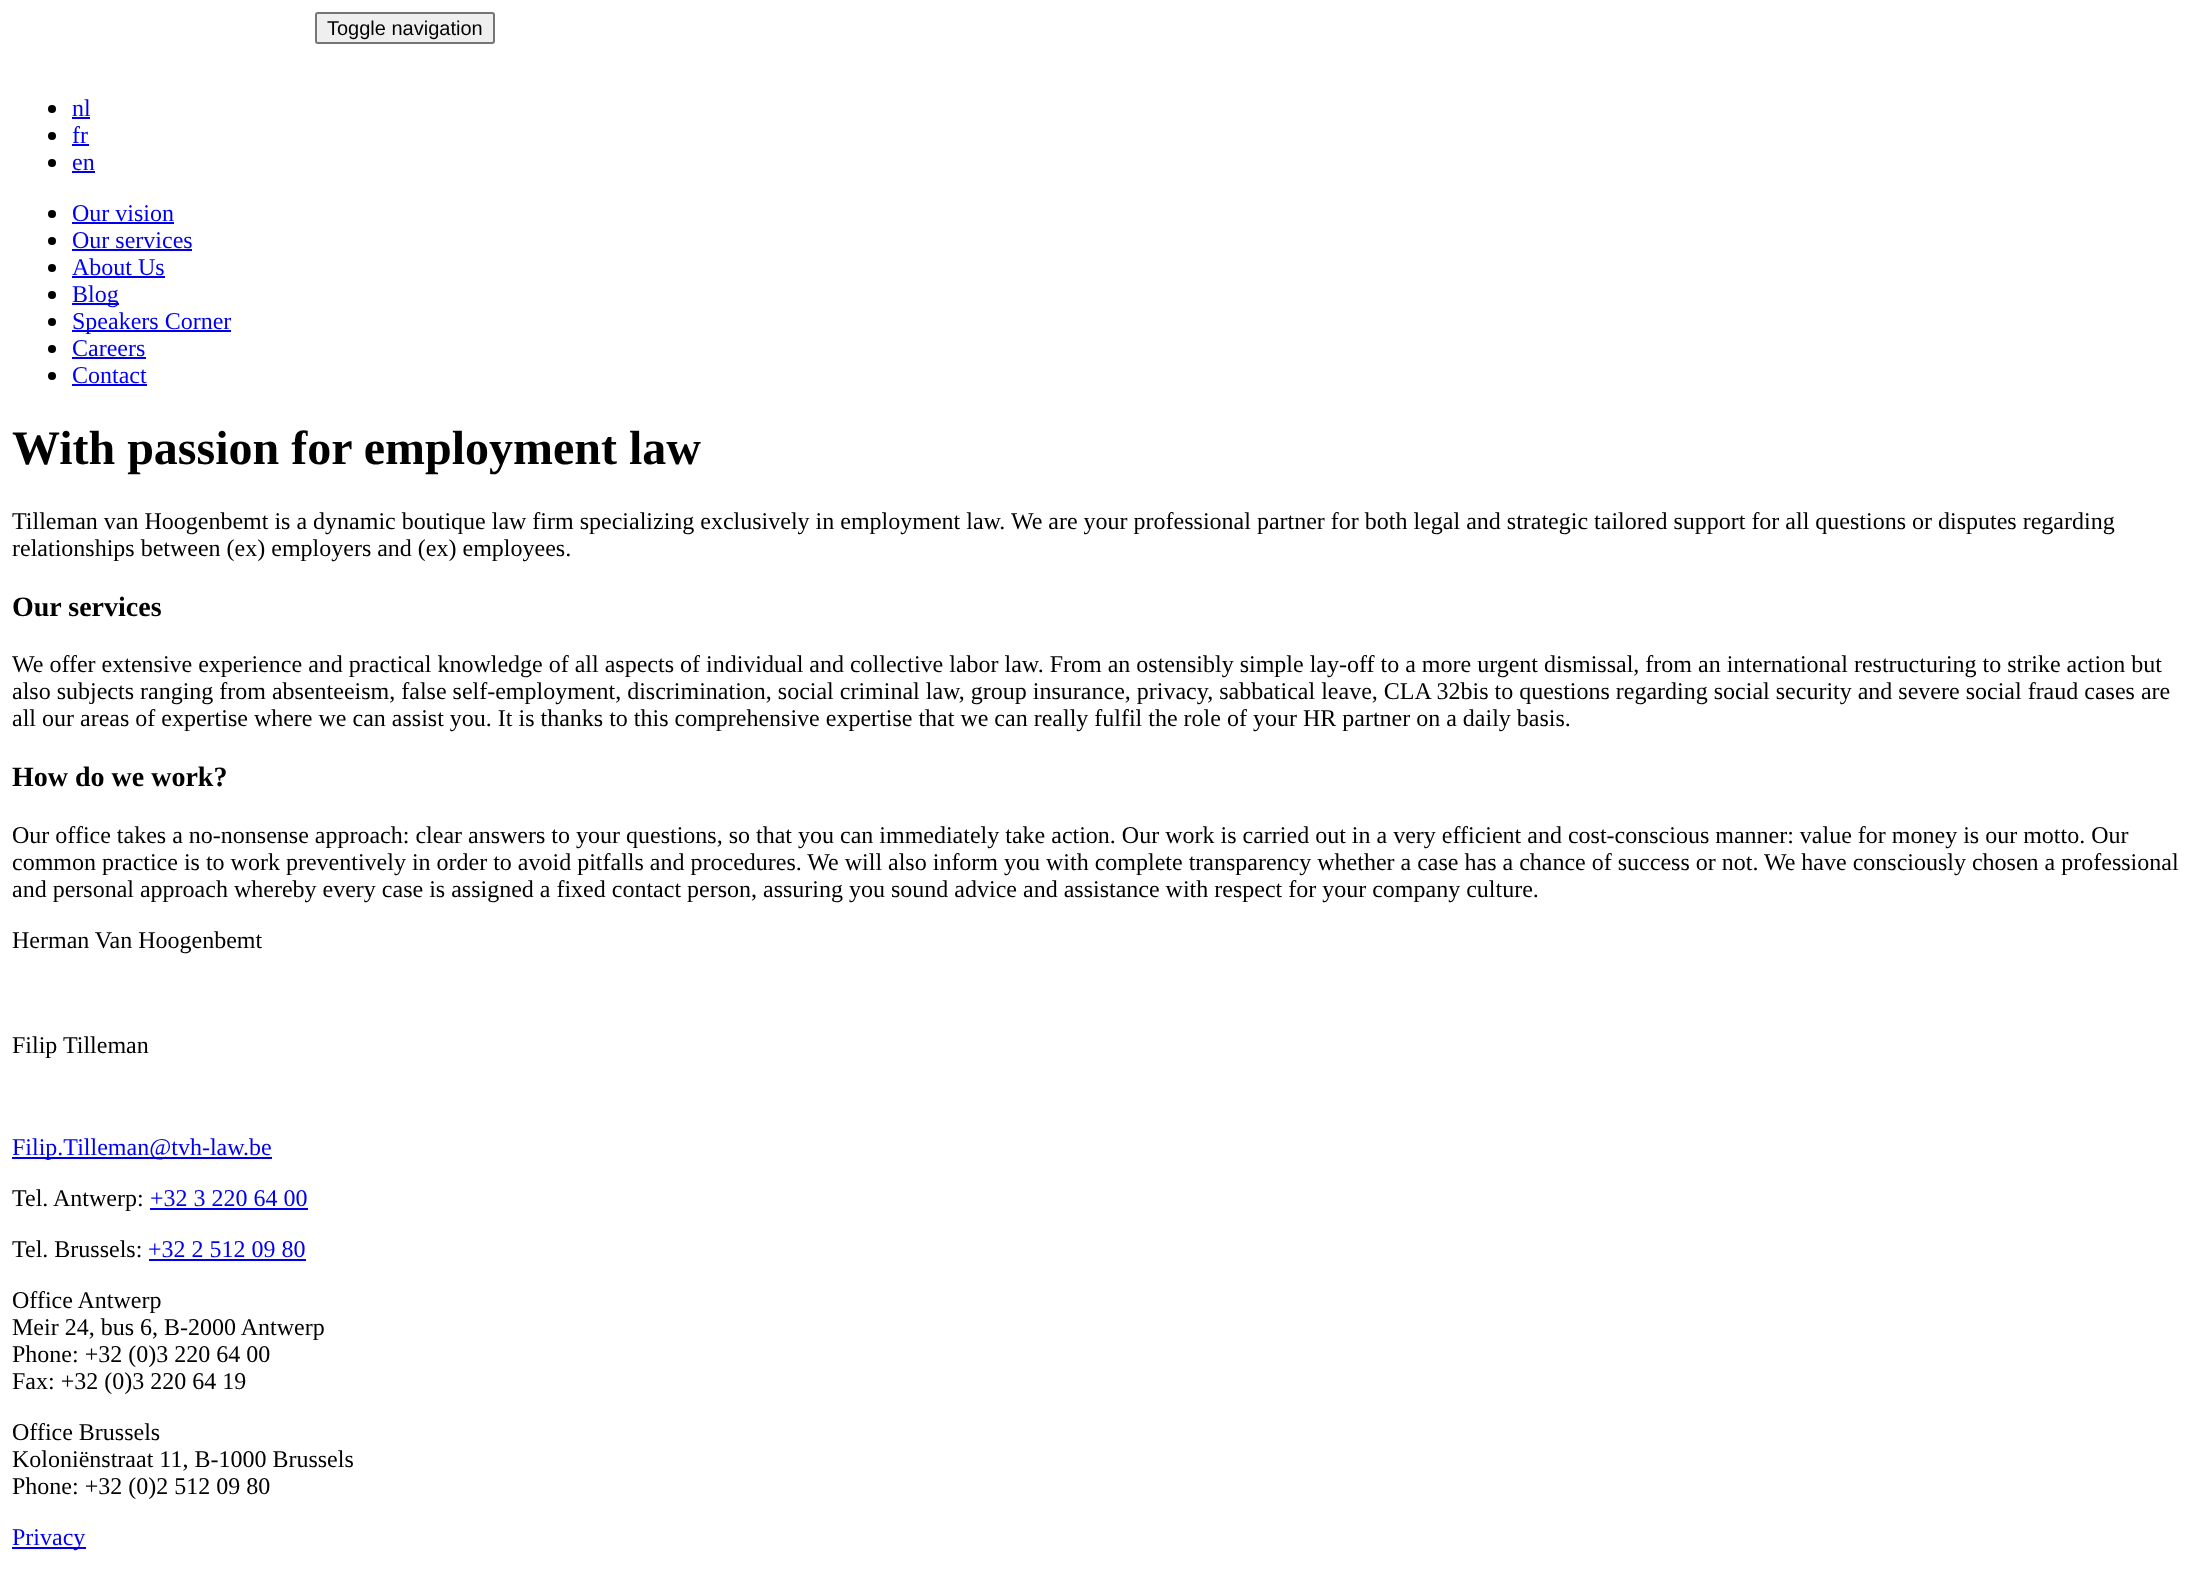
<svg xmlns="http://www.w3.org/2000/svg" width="2208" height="1576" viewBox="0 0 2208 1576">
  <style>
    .t1 { font: 20px Liberation Sans; fill: #000; }
    .t2 { font: 24px Liberation Serif; fill: #00e; }
    .t3 { font: bold 48px Liberation Serif; fill: #000; }
    .t4 { font: 24px Liberation Serif; fill: #000; }
    .t5 { font: bold 28px Liberation Serif; fill: #000; }
  </style>
  <rect width="100%" height="100%" fill="#fff"/>
  <rect x="316" y="13" width="178" height="30" rx="2" fill="#efefef" stroke="#767676" stroke-width="2"/>
  <text x="327" y="35" class="t1">Toggle navigation</text>
  <circle cx="52" cy="109" r="4" fill="#000"/>
  <text x="72" y="116" class="t2">nl</text>
  <rect x="72" y="117" width="18" height="2" fill="#00e"/>
  <circle cx="52" cy="136" r="4" fill="#000"/>
  <text x="72" y="143" class="t2">fr</text>
  <rect x="72" y="144" width="17" height="2" fill="#00e"/>
  <circle cx="52" cy="163" r="4" fill="#000"/>
  <text x="72" y="170" class="t2">en</text>
  <rect x="72" y="171" width="23" height="2" fill="#00e"/>
  <circle cx="52" cy="214" r="4" fill="#000"/>
  <text x="72" y="221" class="t2">Our vision</text>
  <rect x="72" y="222" width="102" height="2" fill="#00e"/>
  <circle cx="52" cy="241" r="4" fill="#000"/>
  <text x="72" y="248" class="t2">Our services</text>
  <rect x="72" y="249" width="120" height="2" fill="#00e"/>
  <circle cx="52" cy="268" r="4" fill="#000"/>
  <text x="72" y="275" class="t2">About Us</text>
  <rect x="72" y="276" width="93" height="2" fill="#00e"/>
  <circle cx="52" cy="295" r="4" fill="#000"/>
  <rect x="72" y="303" width="47" height="2" fill="#00e"/>
  <text x="72" y="302" class="t2">Blog</text>
  <circle cx="52" cy="322" r="4" fill="#000"/>
  <rect x="72" y="330" width="159" height="2" fill="#00e"/>
  <text x="72" y="329" class="t2">Speakers Corner</text>
  <circle cx="52" cy="349" r="4" fill="#000"/>
  <text x="72" y="356" class="t2">Careers</text>
  <rect x="72" y="357" width="74" height="2" fill="#00e"/>
  <circle cx="52" cy="376" r="4" fill="#000"/>
  <text x="72" y="383" class="t2">Contact</text>
  <rect x="72" y="384" width="75" height="2" fill="#00e"/>
  <text x="12" y="464" class="t3">With passion for employment law</text>
  <text x="12" y="529" class="t4">Tilleman van Hoogenbemt is a dynamic boutique law firm specializing exclusively in employment law. We are your professional partner for both legal and strategic tailored support for all questions or disputes regarding</text>
  <text x="12" y="556" class="t4">relationships between (ex) employers and (ex) employees.</text>
  <text x="12" y="616" class="t5">Our services</text>
  <text x="12" y="672" class="t4">We offer extensive experience and practical knowledge of all aspects of individual and collective labor law. From an ostensibly simple lay-off to a more urgent dismissal, from an international restructuring to strike action but</text>
  <text x="12" y="699" class="t4">also subjects ranging from absenteeism, false self-employment, discrimination, social criminal law, group insurance, privacy, sabbatical leave, CLA 32bis to questions regarding social security and severe social fraud cases are</text>
  <text x="12" y="726" class="t4">all our areas of expertise where we can assist you. It is thanks to this comprehensive expertise that we can really fulfil the role of your HR partner on a daily basis.</text>
  <text x="12" y="786" class="t5">How do we work?</text>
  <text x="12" y="843" class="t4">Our office takes a no-nonsense approach: clear answers to your questions, so that you can immediately take action. Our work is carried out in a very efficient and cost-conscious manner: value for money is our motto. Our</text>
  <text x="12" y="870" class="t4">common practice is to work preventively in order to avoid pitfalls and procedures. We will also inform you with complete transparency whether a case has a chance of success or not. We have consciously chosen a professional</text>
  <text x="12" y="897" class="t4">and personal approach whereby every case is assigned a fixed contact person, assuring you sound advice and assistance with respect for your company culture.</text>
  <text x="12" y="948" class="t4">Herman Van Hoogenbemt</text>
  <text x="12" y="1053" class="t4">Filip Tilleman</text>
  <rect x="12" y="1157" width="260" height="2" fill="#00e"/>
  <text x="12" y="1155" class="t2">Filip.Tilleman@tvh-law.be</text>
  <text x="12" y="1206" class="t4">Tel. Antwerp:</text>
  <text x="150" y="1206" class="t2">+32 3 220 64 00</text>
  <rect x="150" y="1208" width="158" height="2" fill="#00e"/>
  <text x="12" y="1257" class="t4">Tel. Brussels:</text>
  <text x="148" y="1257" class="t2">+32 2 512 09 80</text>
  <rect x="149" y="1259" width="157" height="2" fill="#00e"/>
  <text x="12" y="1308" class="t4">Office Antwerp</text>
  <text x="12" y="1335" class="t4">Meir 24, bus 6, B-2000 Antwerp</text>
  <text x="12" y="1362" class="t4">Phone: +32 (0)3 220 64 00</text>
  <text x="12" y="1389" class="t4">Fax: +32 (0)3 220 64 19</text>
  <text x="12" y="1440" class="t4">Office Brussels</text>
  <text x="12" y="1467" class="t4">Koloniënstraat 11, B-1000 Brussels</text>
  <text x="12" y="1494" class="t4">Phone: +32 (0)2 512 09 80</text>
  <rect x="12" y="1547" width="74" height="2" fill="#00e"/>
  <text x="12" y="1545" class="t2">Privacy</text>
</svg>
